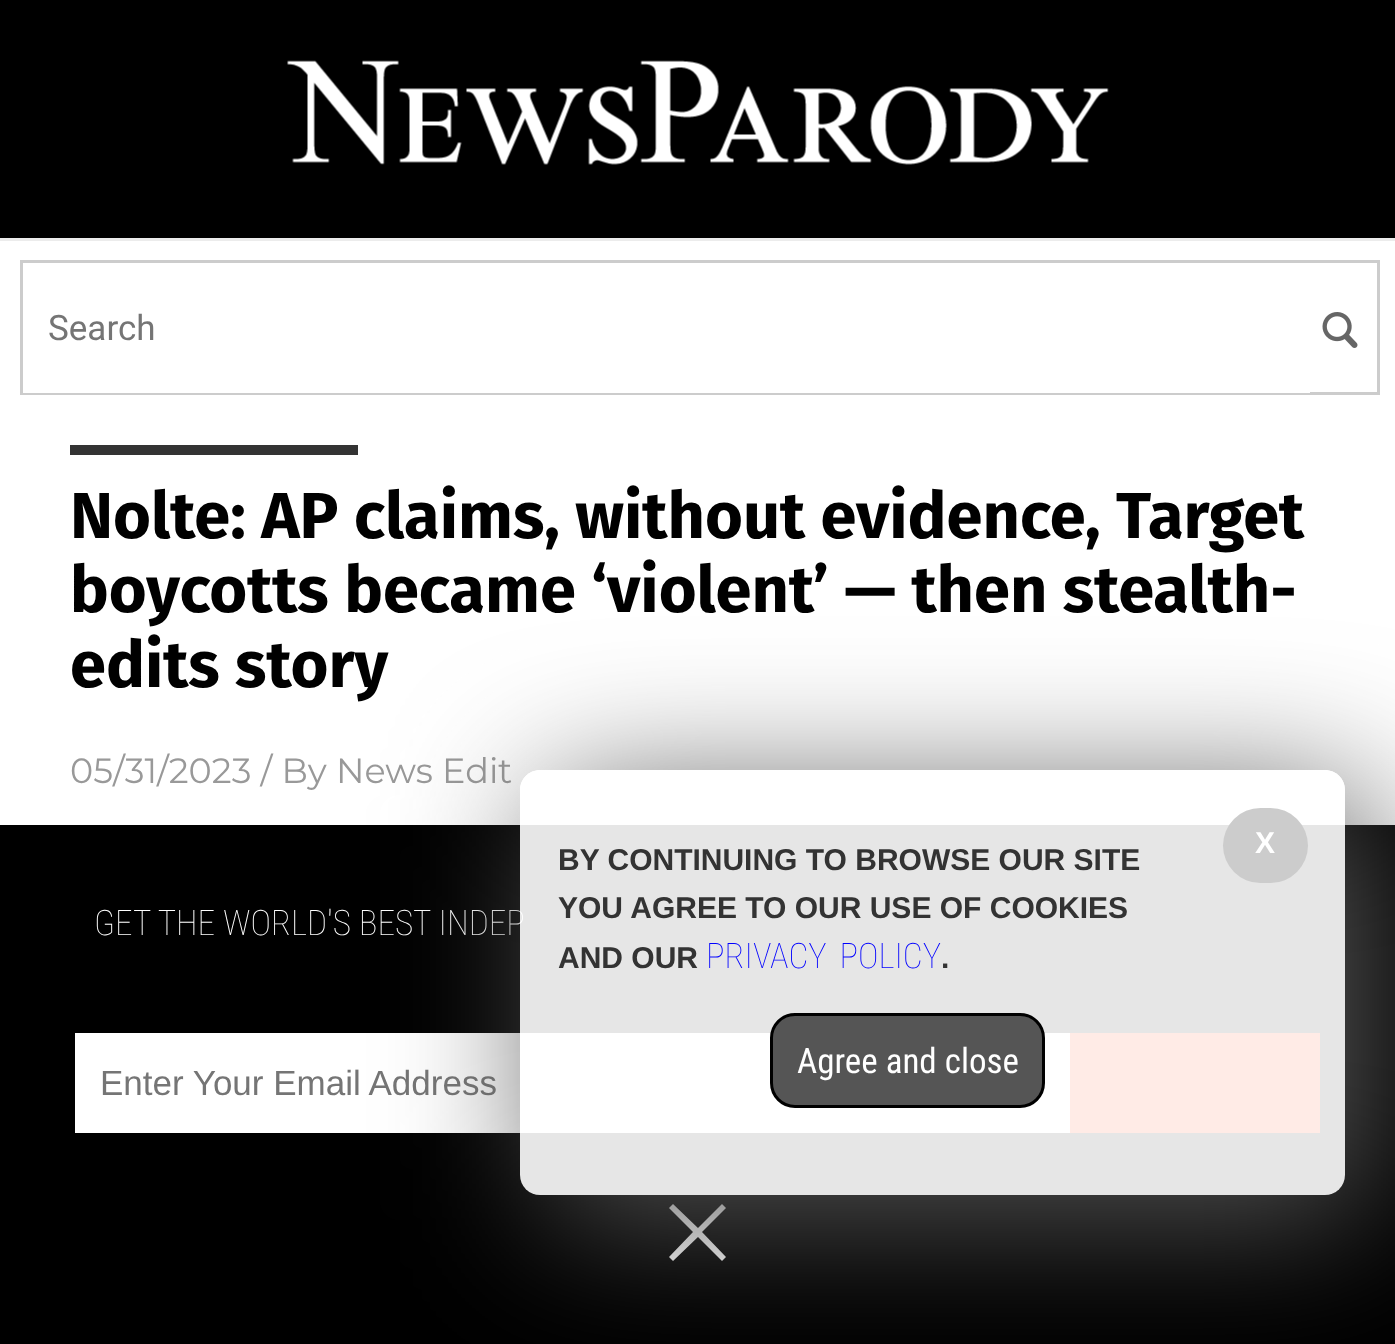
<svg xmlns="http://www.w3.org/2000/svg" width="1395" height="1344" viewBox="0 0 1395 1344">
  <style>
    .t1 { font: 35px Roboto; fill: #757575; }
    .t2 { font: bold 65px Fira Sans; fill: #000; }
    .t3 { font: 35px Montserrat; fill: #999; }
    .t4 { font: 100 35px Roboto Condensed; fill: #fff; }
    .t5 { font: 35px Liberation Sans; fill: #757575; }
    .t6 { font: bold 30px Liberation Sans; fill: #fff; }
    .t7 { font: bold 30px Liberation Sans; fill: #333; }
    .t8 { font: 100 35px Roboto Condensed; fill: #00f; }
    .t9 { font: 35px Roboto Condensed; fill: #fff; }
  </style>
  <defs>
    <clipPath id="clip1"><path d="M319 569H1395V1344H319ZM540 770H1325C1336 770 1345 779 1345 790V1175C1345 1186 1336 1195 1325 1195H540C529 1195 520 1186 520 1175V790C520 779 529 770 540 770Z" clip-rule="evenodd"/></clipPath>
  </defs>
  <rect width="100%" height="100%" fill="#000"/>
  <image x="287" y="60" width="822" height="105" href="images/1.png"/>
  <rect x="0" y="241" width="1395" height="584" fill="#fff"/>
  <rect x="0" y="238" width="1395" height="3" fill="#ececec"/>
  <rect x="21.5" y="261.5" width="1357" height="132" fill="none" stroke="#ccc" stroke-width="3"/>
  <rect x="23" y="392" width="1287" height="1" fill="#fff"/>
  <text x="48" y="340" class="t1">Search</text>
  <image x="1322" y="312" width="36" height="36" href="images/2.png"/>
  <rect x="70" y="445" width="288" height="10" fill="#333"/>
  <text x="70" y="538" class="t2">Nolte: AP claims, without evidence, Target</text>
  <text x="70" y="612" class="t2">boycotts became ‘violent’ — then stealth-</text>
  <text x="70" y="687" class="t2">edits story</text>
  <text x="70" y="783" class="t3">05/31/2023 / By News Edit</text>
  <text x="94" y="935" class="t4">GET THE WORLD'S BEST INDEP</text>
  <rect x="75" y="1033" width="995" height="100" fill="#fff"/>
  <text x="100" y="1095" class="t5">Enter Your Email Address</text>
  <rect x="1070" y="1033" width="250" height="100" fill="#f30"/>
  <path d="M726 1208L722 1204L698 1228L673 1204L669 1208L693 1232L669 1257L673 1261L698 1237L722 1261L726 1257L702 1232Z" fill="#fff"/>
  <g clip-path="url(#clip1)">
    <rect x="545" y="795" width="825" height="425" rx="20" fill="#555" filter="blur(75px)"/>
  </g>
  <rect x="520" y="770" width="825" height="425" rx="20" fill="#ffffffe6"/>
  <rect x="1223" y="808" width="85" height="75" rx="37.5" fill="#ccc"/>
  <text x="1255" y="853" class="t6">X</text>
  <text x="558" y="870" class="t7">BY CONTINUING TO BROWSE OUR SITE</text>
  <text x="558" y="918" class="t7">YOU AGREE TO OUR USE OF COOKIES</text>
  <text x="558" y="968" class="t7">AND OUR</text>
  <text x="706" y="968" word-spacing="5" class="t8">PRIVACY POLICY</text>
  <text x="941" y="968" class="t7">.</text>
  <rect x="771.5" y="1014.5" width="272" height="92" rx="23.5" fill="#555" stroke="#000" stroke-width="3"/>
  <text x="797" y="1073" class="t9">Agree and close</text>
</svg>
